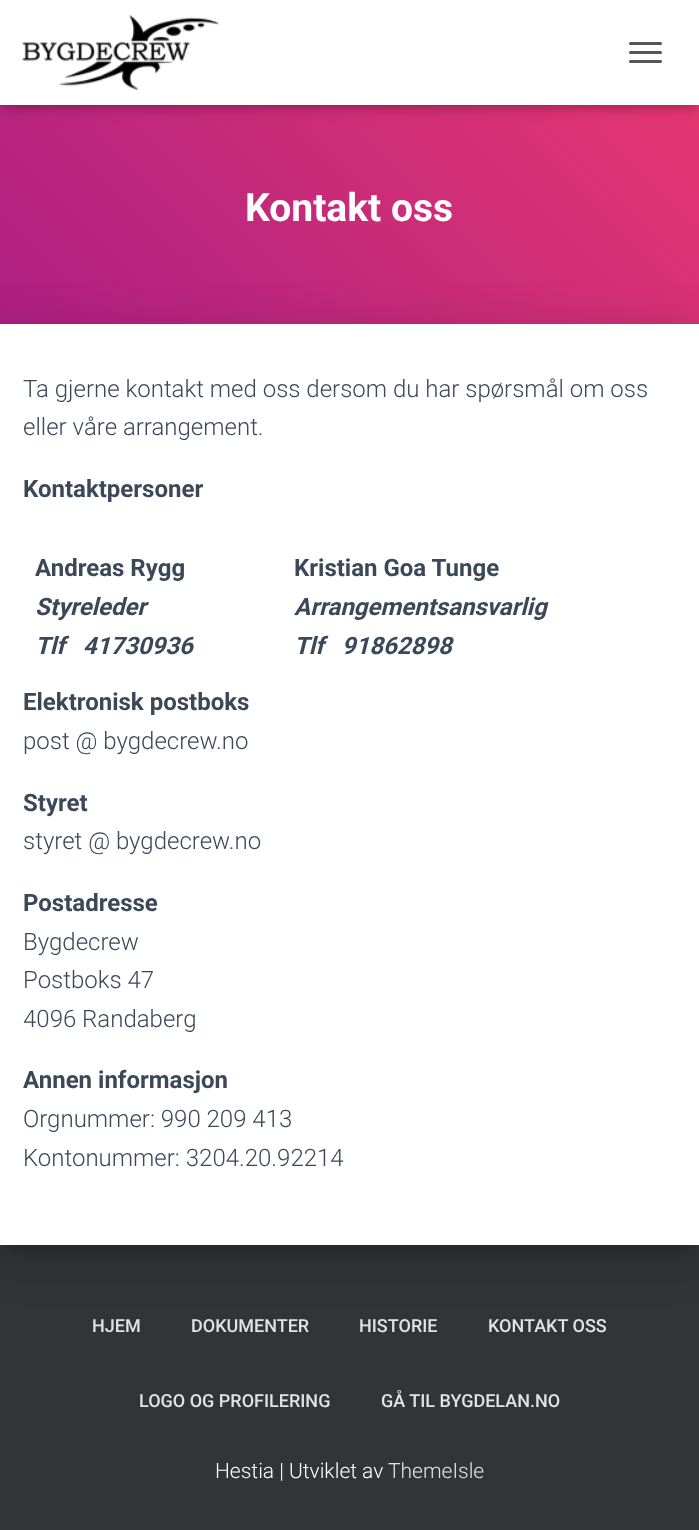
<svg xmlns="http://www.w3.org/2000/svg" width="699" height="1530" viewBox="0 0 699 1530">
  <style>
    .t1 { font: bold 39px Roboto; fill: #fff; }
    .t2 { font: 300 24px Roboto; fill: #3c4858; }
    .t3 { font: bold 24px Roboto; fill: #3c4858; }
    .t4 { font: italic bold 24px Roboto; fill: #3c4858; }
    .t5 { font: 500 18px Roboto; fill: #e2e3e3; }
    .t6 { font: 300 21px Roboto; fill: #fff; }
    .t7 { font: 300 21px Roboto; fill: #e2e3e3; }
  </style>
  <defs>
    <linearGradient id="g1" gradientUnits="userSpaceOnUse" x1="71" y1="485" x2="628" y2="-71"><stop offset="0" stop-color="#a81d84"/><stop offset="1" stop-color="#ea396f"/></linearGradient>
  </defs>
  <rect width="100%" height="100%" fill="#323437"/>
  <rect x="0" y="105" width="699" height="219" fill="url(#g1)"/>
  <rect x="3" y="9" width="693" height="99" fill="#0000001a" filter="blur(4px)"/>
  <rect x="0" y="2" width="699" height="105" fill="#0000001f" filter="blur(7.5px)"/>
  <rect x="9" y="11" width="681" height="87" fill="#0000006b" filter="blur(7.5px)"/>
  <rect x="0" y="0" width="699" height="105" fill="#fff"/>
  <image x="22" y="15" width="197" height="75" href="images/1.png"/>
  <rect x="629" y="42" width="33" height="3" rx="1.5" fill="#555"/>
  <rect x="629" y="51" width="33" height="3" rx="1.5" fill="#555"/>
  <rect x="629" y="60" width="33" height="3" rx="1.5" fill="#555"/>
  <text x="245" y="221" class="t1">Kontakt oss</text>
  <rect x="8" y="344" width="684" height="906" fill="#00000033" filter="blur(7.5px)"/>
  <rect x="-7" y="326" width="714" height="936" fill="#0000001f" filter="blur(22.5px)"/>
  <rect x="0" y="324" width="699" height="921" fill="#fff"/>
  <text x="23" y="397" class="t2">Ta gjerne kontakt med oss dersom du har spørsmål om oss</text>
  <text x="23" y="435" class="t2">eller våre arrangement.</text>
  <text x="23" y="497" class="t3">Kontaktpersoner</text>
  <text x="35" y="576" class="t3">Andreas Rygg</text>
  <text x="35" y="615" class="t4">Styreleder</text>
  <text x="35" y="654" class="t4" xml:space="preserve">Tlf   41730936</text>
  <text x="294" y="576" class="t3">Kristian Goa Tunge</text>
  <text x="294" y="615" class="t4">Arrangementsansvarlig</text>
  <text x="294" y="654" class="t4" xml:space="preserve">Tlf   91862898</text>
  <text x="23" y="710" class="t3">Elektronisk postboks</text>
  <text x="23" y="749" class="t2">post @ bygdecrew.no</text>
  <text x="23" y="811" class="t3">Styret</text>
  <text x="23" y="849" class="t2">styret @ bygdecrew.no</text>
  <text x="23" y="911" class="t3">Postadresse</text>
  <text x="23" y="950" class="t2">Bygdecrew</text>
  <text x="23" y="988" class="t2">Postboks 47</text>
  <text x="23" y="1027" class="t2">4096 Randaberg</text>
  <text x="23" y="1088" class="t3">Annen informasjon</text>
  <text x="23" y="1127" class="t2">Orgnummer: 990 209 413</text>
  <text x="23" y="1166" class="t2">Kontonummer: 3204.20.92214</text>
  <text x="92" y="1332" class="t5">HJEM</text>
  <text x="191" y="1332" class="t5">DOKUMENTER</text>
  <text x="359" y="1332" class="t5">HISTORIE</text>
  <text x="488" y="1332" class="t5">KONTAKT OSS</text>
  <text x="139" y="1407" class="t5">LOGO OG PROFILERING</text>
  <text x="381" y="1407" class="t5">GÅ TIL BYGDELAN.NO</text>
  <text x="215" y="1478" class="t6">Hestia | Utviklet av</text>
  <text x="388" y="1478" class="t7">ThemeIsle</text>
</svg>
